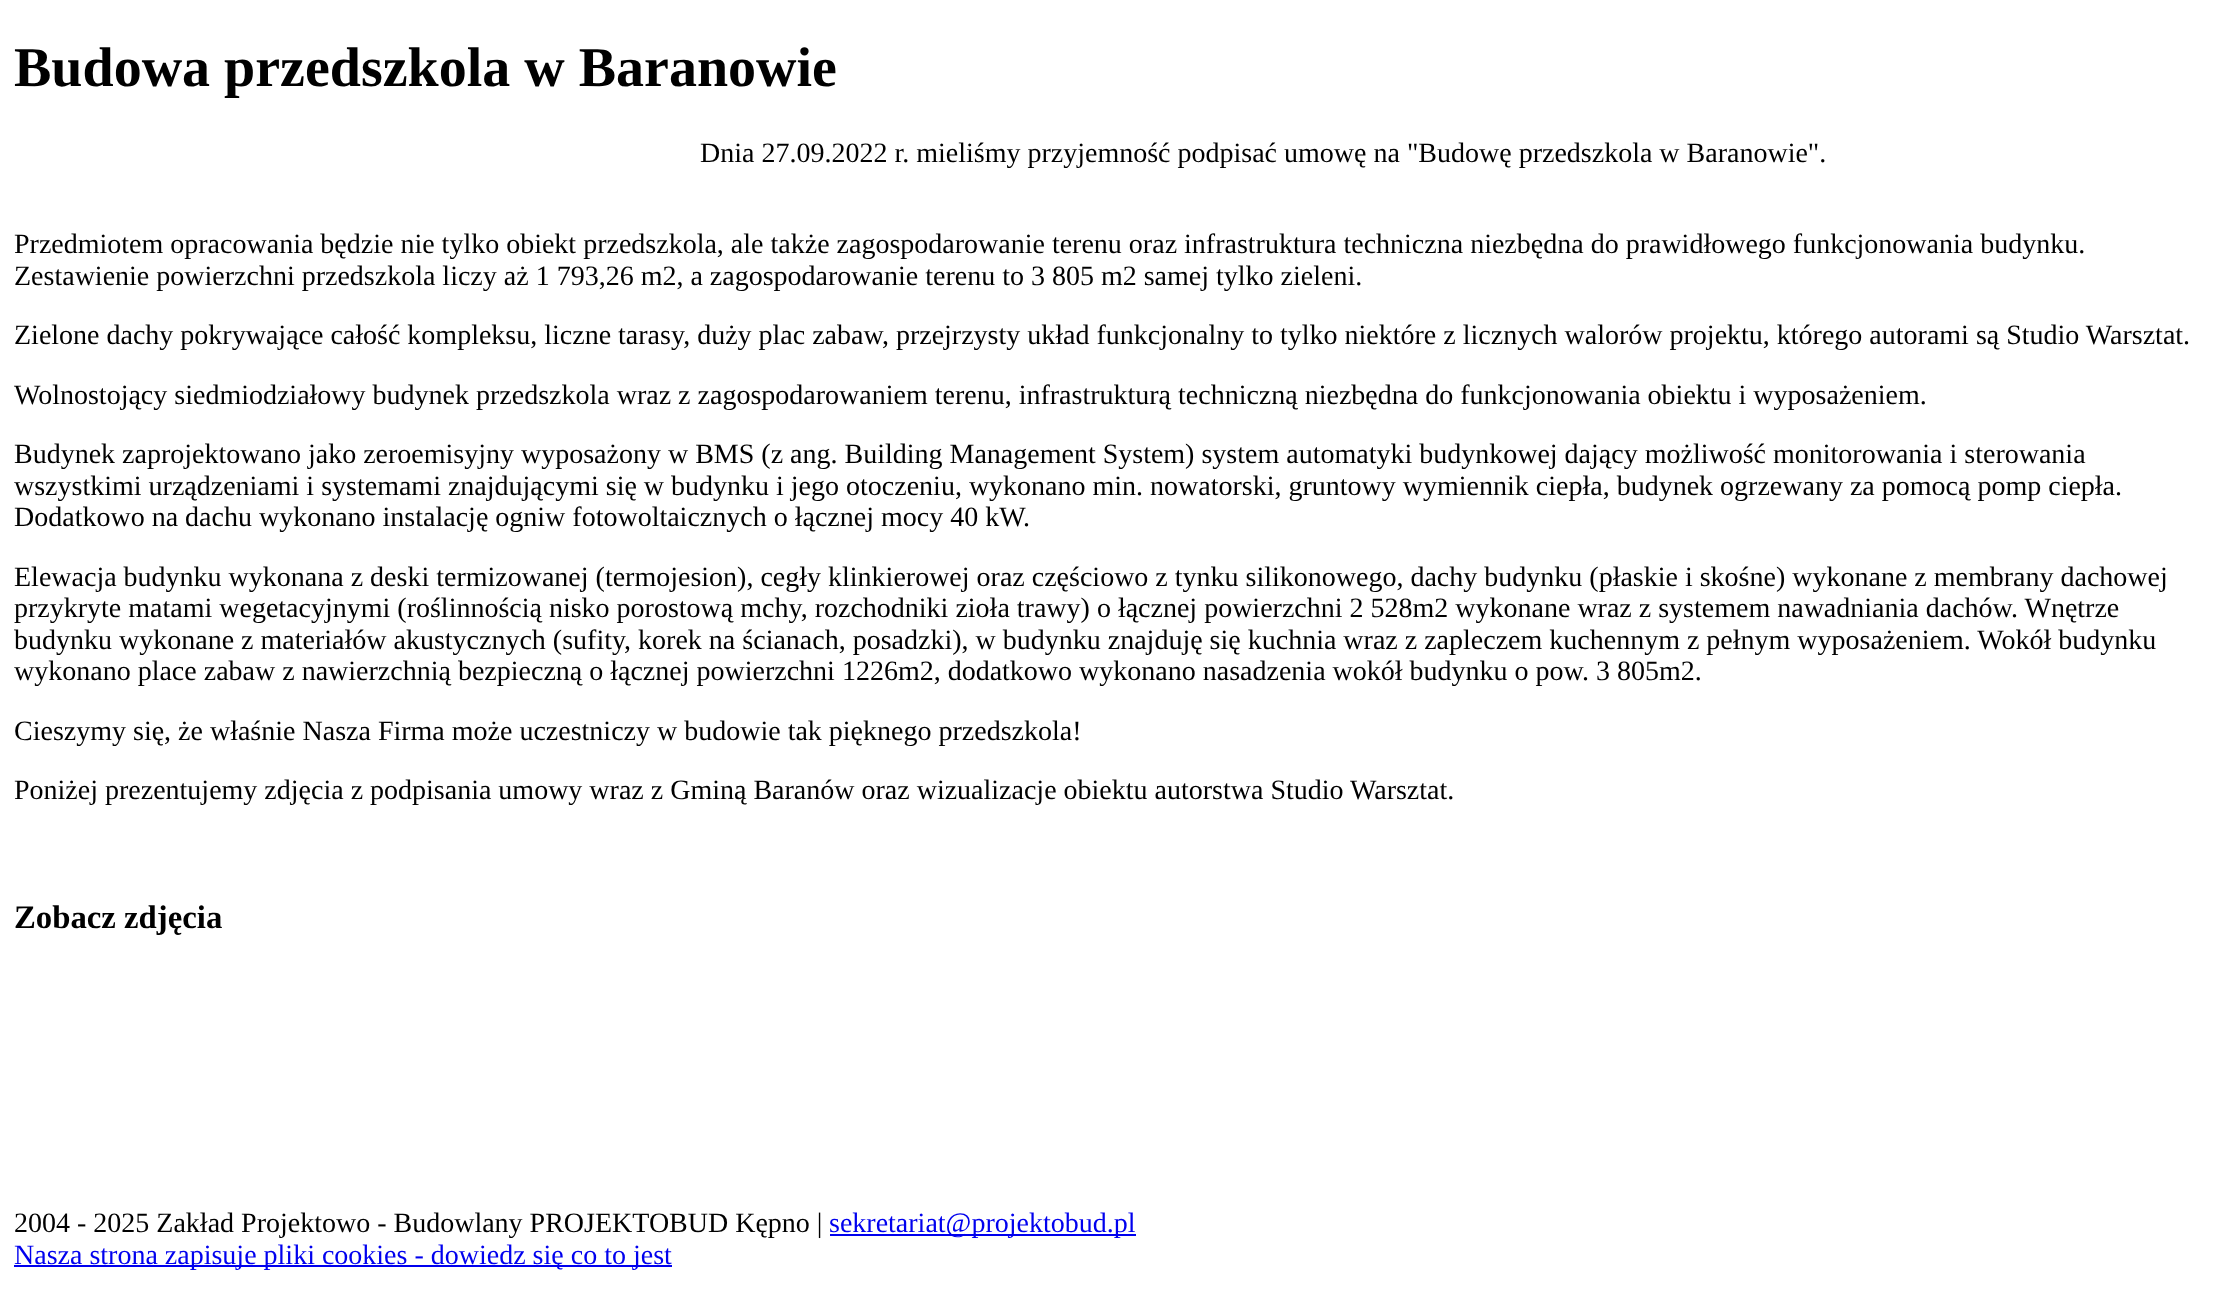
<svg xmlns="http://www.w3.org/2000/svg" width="2218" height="1297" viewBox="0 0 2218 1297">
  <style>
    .t1 { font: bold 56px Liberation Serif; fill: #000; }
    .t2 { font: 28px Liberation Serif; fill: #000; }
    .t3 { font: bold 32.75px Liberation Serif; fill: #000; }
    .t4 { font: 28px Liberation Serif; fill: #00e; }
  </style>
  <rect width="100%" height="100%" fill="#fff"/>
  <text x="14" y="86" class="t1">Budowa przedszkola w Baranowie</text>
  <text x="700" y="162" class="t2">Dnia 27.09.2022 r. mieliśmy przyjemność podpisać umowę na "Budowę przedszkola w Baranowie".</text>
  <text x="14" y="253" class="t2">Przedmiotem opracowania będzie nie tylko obiekt przedszkola, ale także zagospodarowanie terenu oraz infrastruktura techniczna niezbędna do prawidłowego funkcjonowania budynku.</text>
  <text x="14" y="285" class="t2">Zestawienie powierzchni przedszkola liczy aż 1 793,26 m2, a zagospodarowanie terenu to 3 805 m2 samej tylko zieleni.</text>
  <text x="14" y="344" class="t2">Zielone dachy pokrywające całość kompleksu, liczne tarasy, duży plac zabaw, przejrzysty układ funkcjonalny to tylko niektóre z licznych walorów projektu, którego autorami są Studio Warsztat.</text>
  <text x="14" y="404" class="t2">Wolnostojący siedmiodziałowy budynek przedszkola wraz z zagospodarowaniem terenu, infrastrukturą techniczną niezbędna do funkcjonowania obiektu i wyposażeniem.</text>
  <text x="14" y="463" class="t2">Budynek zaprojektowano jako zeroemisyjny wyposażony w BMS (z ang. Building Management System) system automatyki budynkowej dający możliwość monitorowania i sterowania</text>
  <text x="14" y="495" class="t2">wszystkimi urządzeniami i systemami znajdującymi się w budynku i jego otoczeniu, wykonano min. nowatorski, gruntowy wymiennik ciepła, budynek ogrzewany za pomocą pomp ciepła.</text>
  <text x="14" y="526" class="t2">Dodatkowo na dachu wykonano instalację ogniw fotowoltaicznych o łącznej mocy 40 kW.</text>
  <text x="14" y="586" class="t2">Elewacja budynku wykonana z deski termizowanej (termojesion), cegły klinkierowej oraz częściowo z tynku silikonowego, dachy budynku (płaskie i skośne) wykonane z membrany dachowej</text>
  <text x="14" y="617" class="t2">przykryte matami wegetacyjnymi (roślinnością nisko porostową mchy, rozchodniki zioła trawy) o łącznej powierzchni 2 528m2 wykonane wraz z systemem nawadniania dachów. Wnętrze</text>
  <text x="14" y="649" class="t2">budynku wykonane z materiałów akustycznych (sufity, korek na ścianach, posadzki), w budynku znajduję się kuchnia wraz z zapleczem kuchennym z pełnym wyposażeniem. Wokół budynku</text>
  <text x="14" y="680" class="t2">wykonano place zabaw z nawierzchnią bezpieczną o łącznej powierzchni 1226m2, dodatkowo wykonano nasadzenia wokół budynku o pow. 3 805m2.</text>
  <text x="14" y="740" class="t2">Cieszymy się, że właśnie Nasza Firma może uczestniczy w budowie tak pięknego przedszkola!</text>
  <text x="14" y="799" class="t2">Poniżej prezentujemy zdjęcia z podpisania umowy wraz z Gminą Baranów oraz wizualizacje obiektu autorstwa Studio Warsztat.</text>
  <text x="14" y="928" class="t3">Zobacz zdjęcia</text>
  <text x="14" y="1232" class="t2">2004 - 2025 Zakład Projektowo - Budowlany PROJEKTOBUD Kępno |</text>
  <rect x="830" y="1234" width="306" height="2" fill="#00e"/>
  <text x="829" y="1232" class="t4">sekretariat@projektobud.pl</text>
  <rect x="14" y="1265" width="658" height="2" fill="#00e"/>
  <text x="14" y="1264" class="t4">Nasza strona zapisuje pliki cookies - dowiedz się co to jest</text>
</svg>
